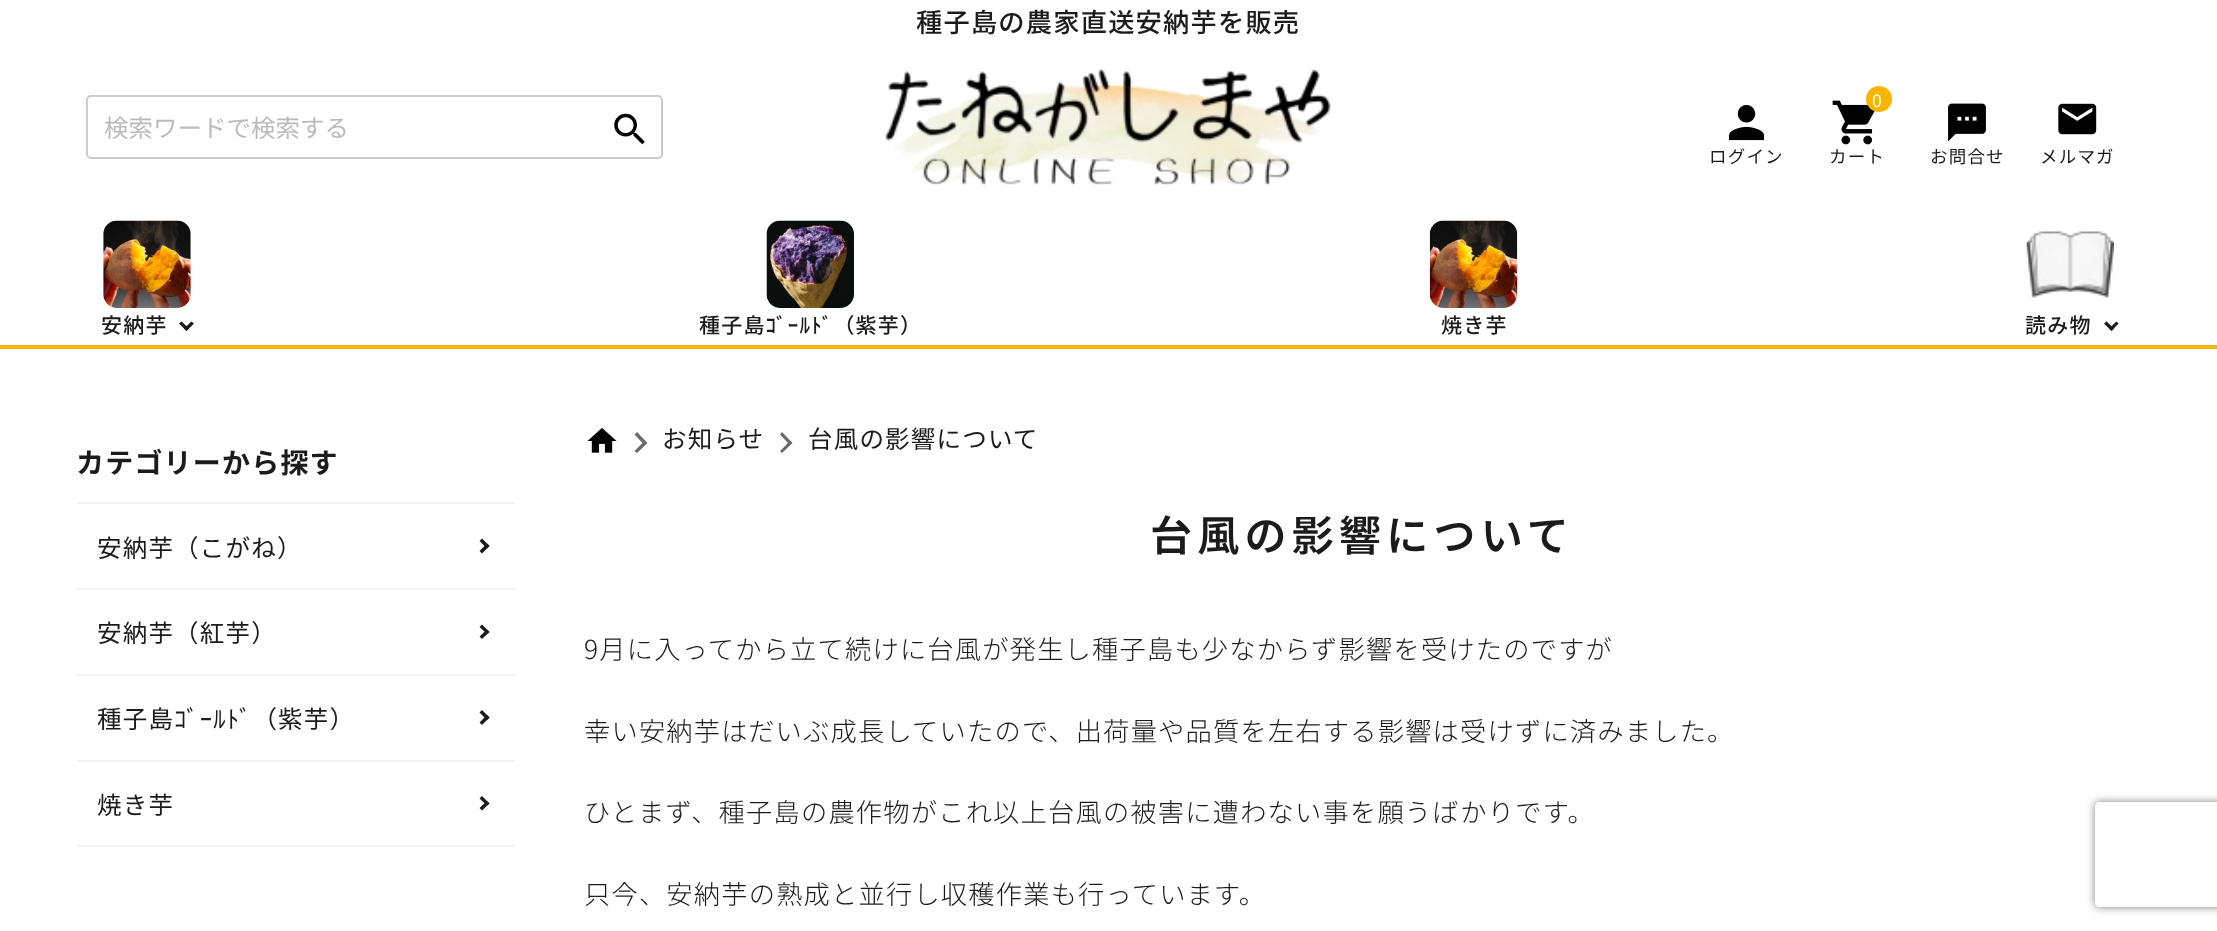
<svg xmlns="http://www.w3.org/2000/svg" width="2217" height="931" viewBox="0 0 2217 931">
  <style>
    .t1 { font: 500 26.25px Noto Sans JP; letter-spacing: 1.2px; fill: #1b1b1b; }
    .t2 { font: 24.5px Noto Sans JP; fill: #bbb; }
    .t3 { font: 17.5px Noto Sans JP; letter-spacing: 1.2px; fill: #1b1b1b; }
    .t4 { font: 17.5px Noto Sans JP; letter-spacing: 1.2px; fill: #fff; }
    .t5 { font: 500 21px Noto Sans JP; letter-spacing: 1.2px; fill: #1b1b1b; }
    .t6 { font: bold 28px Noto Sans JP; letter-spacing: 1.2px; fill: #1b1b1b; }
    .t7 { font: 24.5px Noto Sans JP; letter-spacing: 1.2px; fill: #1b1b1b; }
    .t8 { font: 600 42px Noto Sans JP; letter-spacing: 5.25px; fill: #1b1b1b; }
    .t9 { font: 300 26.25px Noto Sans JP; letter-spacing: 1.2px; fill: #1b1b1b; }
  </style>
  <defs>
    <clipPath id="clip1"><path d="M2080 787H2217V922H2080ZM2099 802H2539C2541 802 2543 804 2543 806V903C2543 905 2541 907 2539 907H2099C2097 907 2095 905 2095 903V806C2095 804 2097 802 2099 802Z" clip-rule="evenodd"/></clipPath>
  </defs>
  <rect width="100%" height="100%" fill="#fff"/>
  <text x="916" y="32" class="t1">種子島の農家直送安納芋を販売</text>
  <rect x="87" y="96" width="575" height="62" rx="4" fill="none" stroke="#ccc" stroke-width="2"/>
  <text x="104" y="137" class="t2">検索ワードで検索する</text>
  <image x="614" y="113" width="31" height="32" href="images/1.png"/>
  <image x="885" y="69" width="446" height="116" href="images/2.png"/>
  <image x="1728" y="105" width="37" height="36" href="images/3.png"/>
  <text x="1709" y="163" class="t3">ログイン</text>
  <image x="1832" y="100" width="43" height="45" href="images/4.png"/>
  <circle cx="1879" cy="99" r="13" fill="#f8b500"/>
  <text x="1872" y="107" class="t4">0</text>
  <text x="1829" y="163" class="t3">カート</text>
  <image x="1948" y="103" width="38" height="39" href="images/5.png"/>
  <text x="1930" y="163" class="t3">お問合せ</text>
  <image x="2058" y="103" width="39" height="32" href="images/6.png"/>
  <text x="2040" y="163" class="t3">メルマガ</text>
  <rect x="0" y="345" width="2217" height="4" fill="#f8b500"/>
  <image x="103" y="220" width="88" height="88" href="images/7.png"/>
  <text x="101" y="333" class="t5">安納芋</text>
  <path d="M194 323.5L186.5 331L184 328.5L191.5 321.5Z" fill="#1b1b1b"/>
  <path d="M189 328.5L186.5 331L179 323.5L181.5 321.5Z" fill="#1b1b1b"/>
  <image x="766" y="220" width="88" height="88" href="images/8.png"/>
  <text x="699" y="333" class="t5">種子島ｺﾞｰﾙﾄﾞ（紫芋）</text>
  <image x="1429" y="220" width="89" height="88" href="images/9.png"/>
  <text x="1441" y="333" class="t5">焼き芋</text>
  <image x="2026" y="231" width="88" height="67" href="images/10.png"/>
  <text x="2025" y="333" class="t5">読み物</text>
  <path d="M2118.5 323.5L2111.5 331L2109 328.5L2116.5 321.5Z" fill="#1b1b1b"/>
  <path d="M2114 328.5L2111.5 331L2104 323.5L2106.5 321.5Z" fill="#1b1b1b"/>
  <text x="76" y="473" class="t6">カテゴリーから探す</text>
  <rect x="77" y="502" width="438" height="2" fill="#f2f2f2"/>
  <rect x="77" y="588" width="438" height="2" fill="#f2f2f2"/>
  <text x="97" y="557" class="t7">安納芋（こがね）</text>
  <path d="M482 538.5L489.5 546L487 548.5L479.5 541Z" fill="#1b1b1b"/>
  <path d="M487 543.5L489.5 546L482 553.5L479.5 551Z" fill="#1b1b1b"/>
  <rect x="77" y="674" width="438" height="2" fill="#f2f2f2"/>
  <text x="97" y="642" class="t7">安納芋（紅芋）</text>
  <path d="M482 624.5L489.5 632L487 634L479.5 627Z" fill="#1b1b1b"/>
  <path d="M487 629.5L489.5 632L482 639L479.5 636.5Z" fill="#1b1b1b"/>
  <rect x="77" y="760" width="438" height="2" fill="#f2f2f2"/>
  <text x="97" y="728" class="t7">種子島ｺﾞｰﾙﾄﾞ（紫芋）</text>
  <path d="M482 710L489.5 717.5L487 720L479.5 712.5Z" fill="#1b1b1b"/>
  <path d="M487 715L489.5 717.5L482 725L479.5 722.5Z" fill="#1b1b1b"/>
  <rect x="77" y="845" width="438" height="2" fill="#f2f2f2"/>
  <text x="97" y="814" class="t7">焼き芋</text>
  <path d="M482 796L489.5 803.5L487 805.5L479.5 798.5Z" fill="#1b1b1b"/>
  <path d="M487 801L489.5 803.5L482 810.5L479.5 808Z" fill="#1b1b1b"/>
  <image x="587" y="428" width="30" height="25" href="images/11.png"/>
  <path d="M637 432L647.5 443L637 453L634.5 451L642.5 443L634.5 434.5Z" fill="#6a6a6a"/>
  <text x="662" y="448" class="t7">お知らせ</text>
  <path d="M782 432L792.5 443L782 453L780 451L788 443L780 434.5Z" fill="#6a6a6a"/>
  <text x="808" y="448" class="t7">台風の影響について</text>
  <text x="1150" y="551" class="t8">台風の影響について</text>
  <text x="584" y="659" class="t9">9月に入ってから立て続けに台風が発生し種子島も少なからず影響を受けたのですが</text>
  <text x="584" y="741" class="t9">幸い安納芋はだいぶ成長していたので、出荷量や品質を左右する影響は受けずに済みました。</text>
  <text x="584" y="822" class="t9">ひとまず、種子島の農作物がこれ以上台風の被害に遭わない事を願うばかりです。</text>
  <text x="584" y="904" class="t9">只今、安納芋の熟成と並行し収穫作業も行っています。</text>
  <g clip-path="url(#clip1)">
    <rect x="2095" y="802" width="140" height="105" rx="4" fill="#808080" filter="blur(4.5px)"/>
  </g>
</svg>
